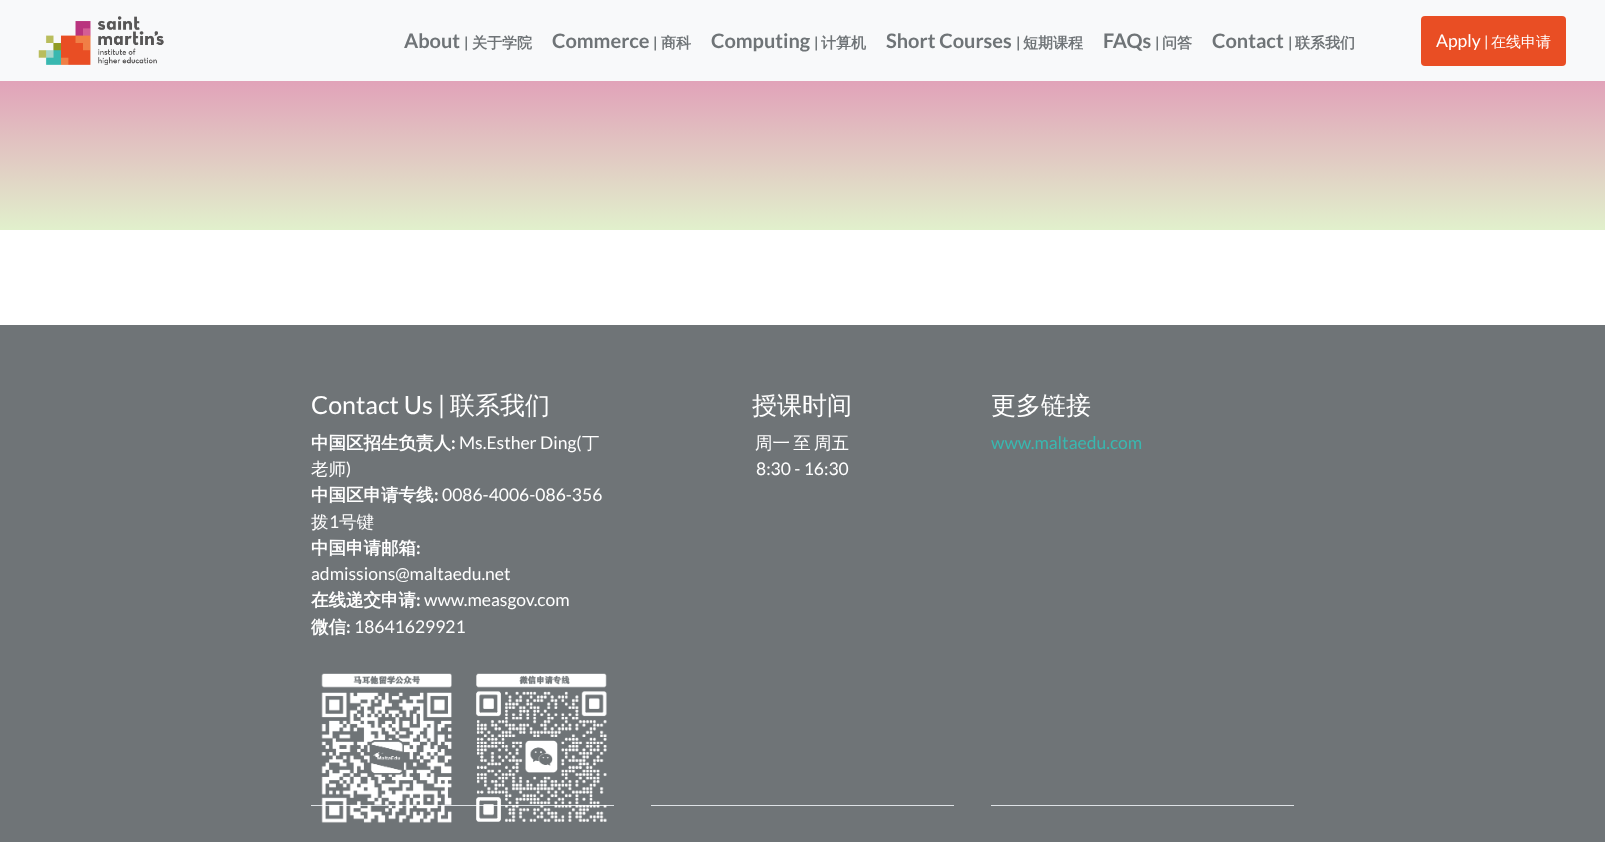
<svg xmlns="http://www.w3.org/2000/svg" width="1605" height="842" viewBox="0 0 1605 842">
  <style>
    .t1 { font: bold 20px Lato; fill: #6f7477; }
    .t2 { font: bold 15px Lato; fill: #6f7477; }
    .t3 { font: bold 15px WenQuanYi Zen Hei; fill: #6f7477; }
    .t4 { font: 17.5px Lato; fill: #fff; }
    .t5 { font: 15px Lato; fill: #fff; }
    .t6 { font: 500 15px WenQuanYi Zen Hei; fill: #fff; }
    .t7 { font: 25px Lato; fill: #fff; }
    .t8 { font: 500 25px WenQuanYi Zen Hei; fill: #fff; }
    .t9 { font: bold 17.5px WenQuanYi Zen Hei; fill: #fff; }
    .t10 { font: bold 17.5px Lato; fill: #fff; }
    .t11 { font: 500 17.5px WenQuanYi Zen Hei; fill: #fff; }
    .t12 { font: 17.5px Lato; fill: #39b8b0; }
  </style>
  <defs>
    <linearGradient id="g1" gradientUnits="userSpaceOnUse" x1="803" y1="42" x2="803" y2="230"><stop offset="0" stop-color="#e18eb4"/><stop offset="1" stop-color="#e1f0cc"/></linearGradient>
  </defs>
  <rect width="100%" height="100%" fill="#fff"/>
  <rect x="0" y="0" width="1605" height="81" fill="#f8f9fa"/>
  <image x="38" y="16" width="126" height="49" href="images/1.png"/>
  <text x="404" y="48" class="t1">About</text>
  <text x="464" y="48" class="t2">|</text>
  <text x="472" y="48" class="t3">关于学院</text>
  <text x="552" y="48" class="t1">Commerce</text>
  <text x="653" y="48" class="t2">|</text>
  <text x="661" y="48" class="t3">商科</text>
  <text x="711" y="48" class="t1">Computing</text>
  <text x="814" y="48" class="t2">|</text>
  <text x="821" y="48" class="t3">计算机</text>
  <text x="886" y="48" class="t1">Short Courses</text>
  <text x="1016" y="48" class="t2">|</text>
  <text x="1023" y="48" class="t3">短期课程</text>
  <text x="1103" y="48" class="t1">FAQs</text>
  <text x="1155" y="48" class="t2">|</text>
  <text x="1162" y="48" class="t3">问答</text>
  <text x="1212" y="48" class="t1">Contact</text>
  <text x="1288" y="48" class="t2">|</text>
  <text x="1295" y="48" class="t3">联系我们</text>
  <rect x="1421" y="16" width="145" height="50" rx="4" fill="#e94e24"/>
  <text x="1436" y="47" class="t4">Apply</text>
  <text x="1484" y="47" class="t5">|</text>
  <text x="1491" y="47" class="t6">在线申请</text>
  <rect x="0" y="81" width="1605" height="149" fill="url(#g1)"/>
  <rect x="0" y="325" width="1605" height="517" fill="#6f7477"/>
  <rect x="311" y="805" width="303" height="1" fill="#dee2e6"/>
  <text x="311" y="414" class="t7">Contact Us |</text>
  <text x="450" y="414" class="t8">联系我们</text>
  <text x="311" y="449" class="t9">中国区招生负责人</text>
  <text x="451" y="449" class="t10">:</text>
  <text x="459" y="449" class="t4">Ms.Esther Ding(</text>
  <text x="582" y="449" class="t11">丁</text>
  <text x="311" y="475" class="t11">老师</text>
  <text x="346" y="475" class="t4">)</text>
  <text x="311" y="501" class="t9">中国区申请专线</text>
  <text x="434" y="501" class="t10">:</text>
  <text x="442" y="501" class="t4">0086-4006-086-356</text>
  <text x="311" y="528" class="t11">拨</text>
  <text x="329" y="528" class="t4">1</text>
  <text x="339" y="528" class="t11">号键</text>
  <text x="311" y="554" class="t9">中国申请邮箱</text>
  <text x="416" y="554" class="t10">:</text>
  <text x="311" y="580" class="t4">admissions@maltaedu.net</text>
  <text x="311" y="606" class="t9">在线递交申请</text>
  <text x="416" y="606" class="t10">:</text>
  <text x="424" y="606" class="t4">www.measgov.com</text>
  <text x="311" y="633" class="t9">微信</text>
  <text x="346" y="633" class="t10">:</text>
  <text x="354" y="633" class="t4">18641629921</text>
  <image x="321" y="673" width="286" height="150" href="images/2.png"/>
  <rect x="651" y="805" width="303" height="1" fill="#dee2e6"/>
  <text x="752" y="414" class="t8">授课时间</text>
  <text x="755" y="449" word-spacing="-2" class="t11">周一 至 周五</text>
  <text x="756" y="475" class="t4">8:30 - 16:30</text>
  <rect x="991" y="805" width="303" height="1" fill="#dee2e6"/>
  <text x="991" y="414" class="t8">更多链接</text>
  <text x="991" y="449" class="t12">www.maltaedu.com</text>
</svg>
